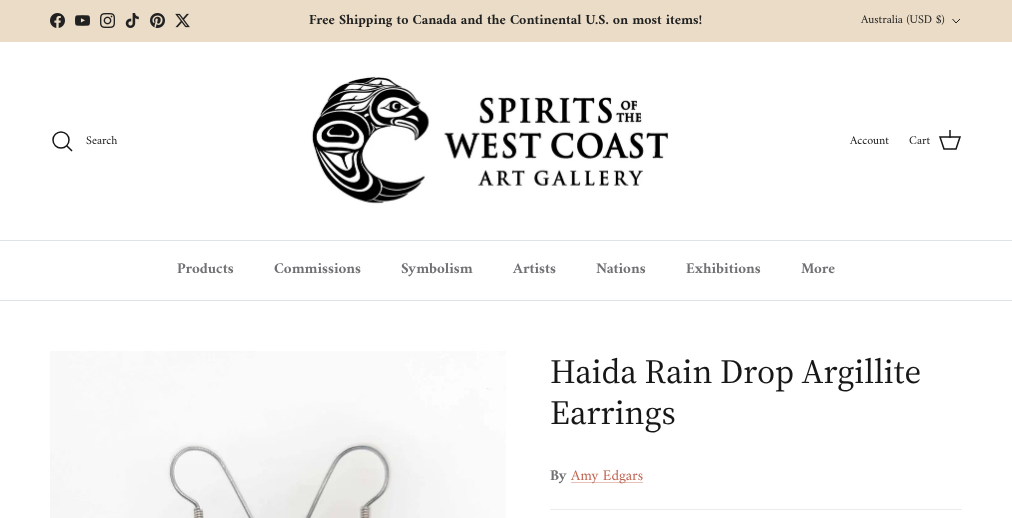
<svg xmlns="http://www.w3.org/2000/svg" width="1012" height="518" viewBox="0 0 1012 518">
  <style>
    .t1 { font: bold 14px Amiri; fill: #212121; }
    .t2 { font: 12px Amiri; fill: #212121; }
    .t3 { font: 12px Amiri; fill: #171717; }
    .t4 { font: bold 15px Amiri; fill: #707173; }
    .t5 { font: 34px 'Source Serif 4'; fill: #171717; }
    .t6 { font: 15px Amiri; fill: #c16452; }
  </style>
  <rect width="100%" height="100%" fill="#fff"/>
  <rect x="0" y="0" width="1012" height="42" fill="#eadcc6"/>
  <image x="50" y="13" width="15" height="15" href="images/1.png"/>
  <image x="75" y="15" width="15" height="11" href="images/2.png"/>
  <image x="100" y="13" width="15" height="15" href="images/3.png"/>
  <image x="125" y="13" width="14" height="15" href="images/4.png"/>
  <image x="150" y="13" width="15" height="15" href="images/5.png"/>
  <image x="175" y="13" width="15" height="15" href="images/6.png"/>
  <text x="309" y="24" class="t1">Free Shipping to Canada and the Continental U.S. on most items!</text>
  <text x="861" y="23" class="t2">Australia (USD $)</text>
  <path d="M960 19L956 23L952.5 19" fill="none" stroke="#212121"/>
  <rect x="0" y="240" width="1012" height="1" fill="#dfe3e8"/>
  <circle cx="61" cy="140" r="8" fill="none" stroke="#171717" stroke-width="1.5"/>
  <text x="86" y="144" class="t3">Search</text>
  <path d="M67 146L71.5 150.5" fill="none" stroke="#171717" stroke-width="1.5" stroke-linecap="square"/>
  <image x="311" y="76" width="358" height="128" href="images/7.png"/>
  <text x="850" y="144" class="t3">Account</text>
  <text x="909" y="144" class="t3">Cart</text>
  <path d="M940 137H960L956 149H944Z" fill="none" stroke="#171717" stroke-width="1.5"/>
  <rect x="949" y="130" width="2" height="8" fill="#171717bf"/>
  <rect x="0" y="300" width="1012" height="1" fill="#dfe3e8"/>
  <text x="177" y="273" class="t4">Products</text>
  <text x="274" y="273" class="t4">Commissions</text>
  <text x="401" y="273" class="t4">Symbolism</text>
  <text x="513" y="273" class="t4">Artists</text>
  <text x="596" y="273" class="t4">Nations</text>
  <text x="686" y="273" class="t4">Exhibitions</text>
  <text x="801" y="273" class="t4">More</text>
  <image x="50" y="351" width="456" height="167" href="images/8.png"/>
  <text x="550" y="383" class="t5">Haida Rain Drop Argillite</text>
  <text x="550" y="424" class="t5">Earrings</text>
  <text x="550" y="480" class="t4">By</text>
  <rect x="571" y="482" width="72" height="1" fill="#e6c1ba"/>
  <text x="571" y="480" class="t6">Amy Edgars</text>
  <rect x="550" y="509" width="412" height="1" fill="#ebebeb"/>
</svg>
